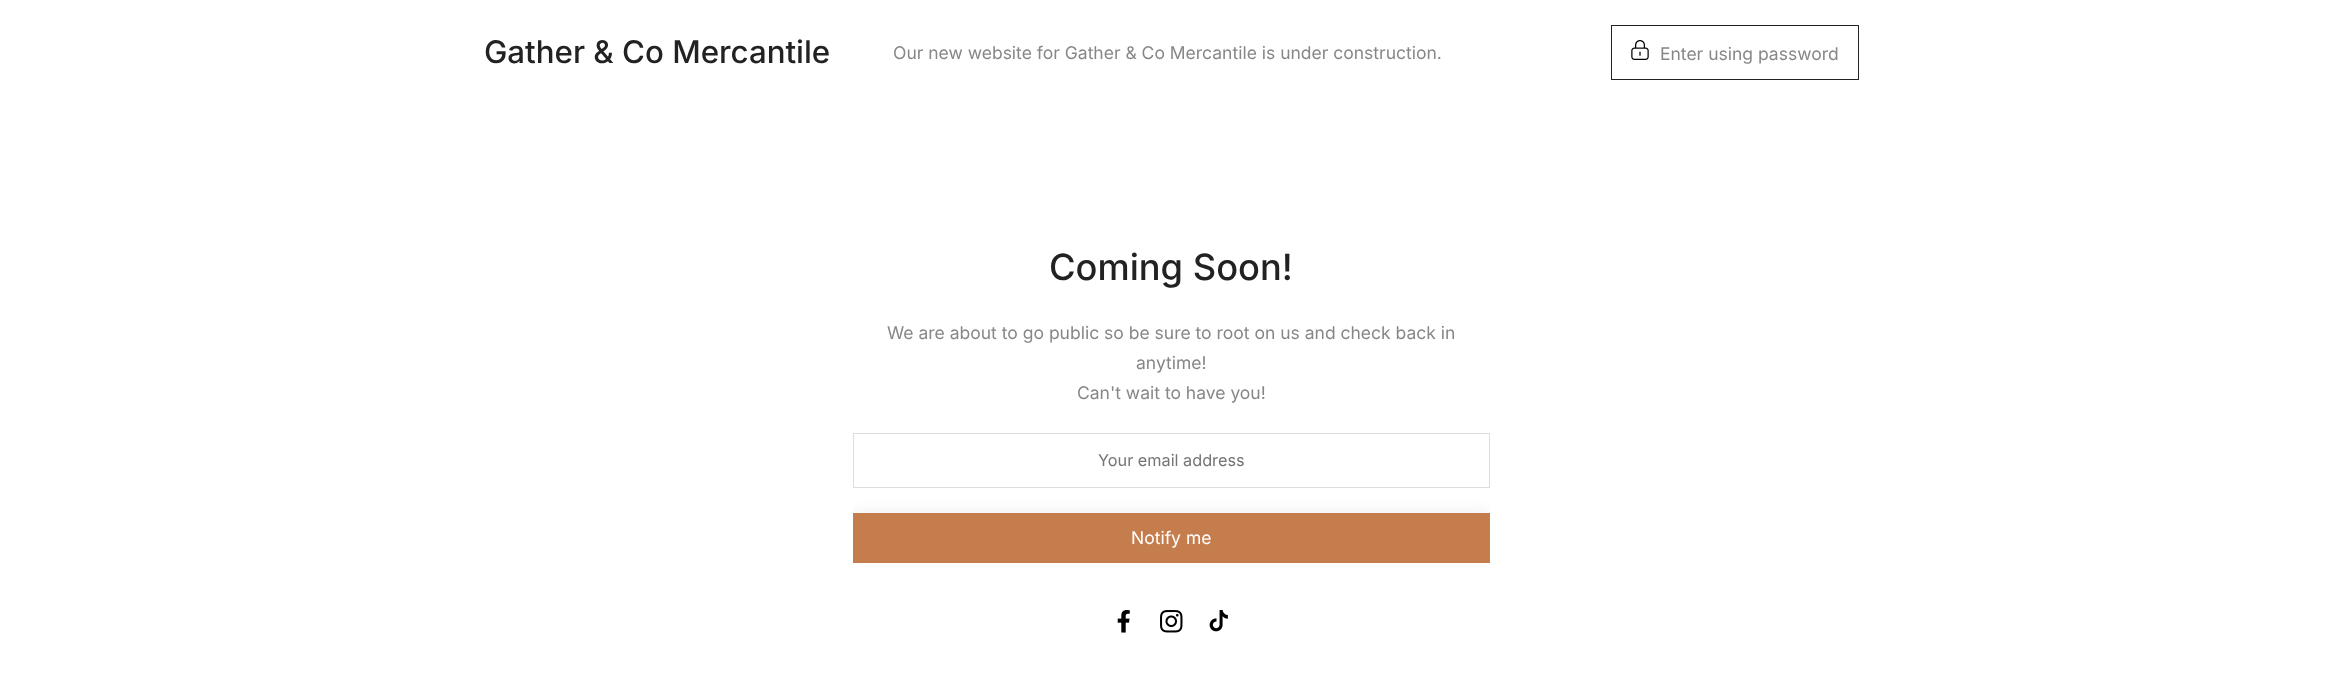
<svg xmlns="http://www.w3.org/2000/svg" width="2342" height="679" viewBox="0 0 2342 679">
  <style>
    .t1 { font: 500 31.25px Inter; fill: #222; }
    .t2 { font: 17.5px Inter; fill: #878787; }
    .t3 { font: 500 36.25px Inter; fill: #222; }
    .t4 { font: 16.25px Inter; fill: #757575; }
    .t5 { font: 17.5px Inter; fill: #fff; }
  </style>
  <defs>
    <clipPath id="clip1"><rect x="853" y="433" width="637" height="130"/></clipPath>
  </defs>
  <rect width="100%" height="100%" fill="#fff"/>
  <text x="484" y="63" class="t1">Gather &amp; Co Mercantile</text>
  <text x="893" y="59" class="t2">Our new website for Gather &amp; Co Mercantile is under construction.</text>
  <rect x="1611.5" y="25.5" width="247" height="54" fill="none" stroke="#222"/>
  <image x="1631" y="40" width="18" height="20" href="images/1.png"/>
  <text x="1660" y="60" class="t2">Enter using password</text>
  <text x="1049" y="280" class="t3">Coming Soon!</text>
  <text x="887" y="339" class="t2">We are about to go public so be sure to root on us and check back in</text>
  <text x="1136" y="369" class="t2">anytime!</text>
  <text x="1077" y="399" class="t2">Can't wait to have you!</text>
  <rect x="853.5" y="433.5" width="636" height="54" fill="none" stroke="#ddd"/>
  <text x="1098" y="466" class="t4">Your email address</text>
  <g clip-path="url(#clip1)">
    <rect x="853" y="519" width="637" height="50" fill="#00000026" filter="blur(9.5px)"/>
  </g>
  <rect x="853" y="513" width="637" height="50" fill="#c67d4e"/>
  <text x="1131" y="544" class="t5">Notify me</text>
  <image x="1117" y="610" width="13" height="23" href="images/2.png"/>
  <image x="1160" y="610" width="23" height="23" href="images/3.png"/>
  <image x="1209" y="610" width="19" height="22" href="images/4.png"/>
</svg>
